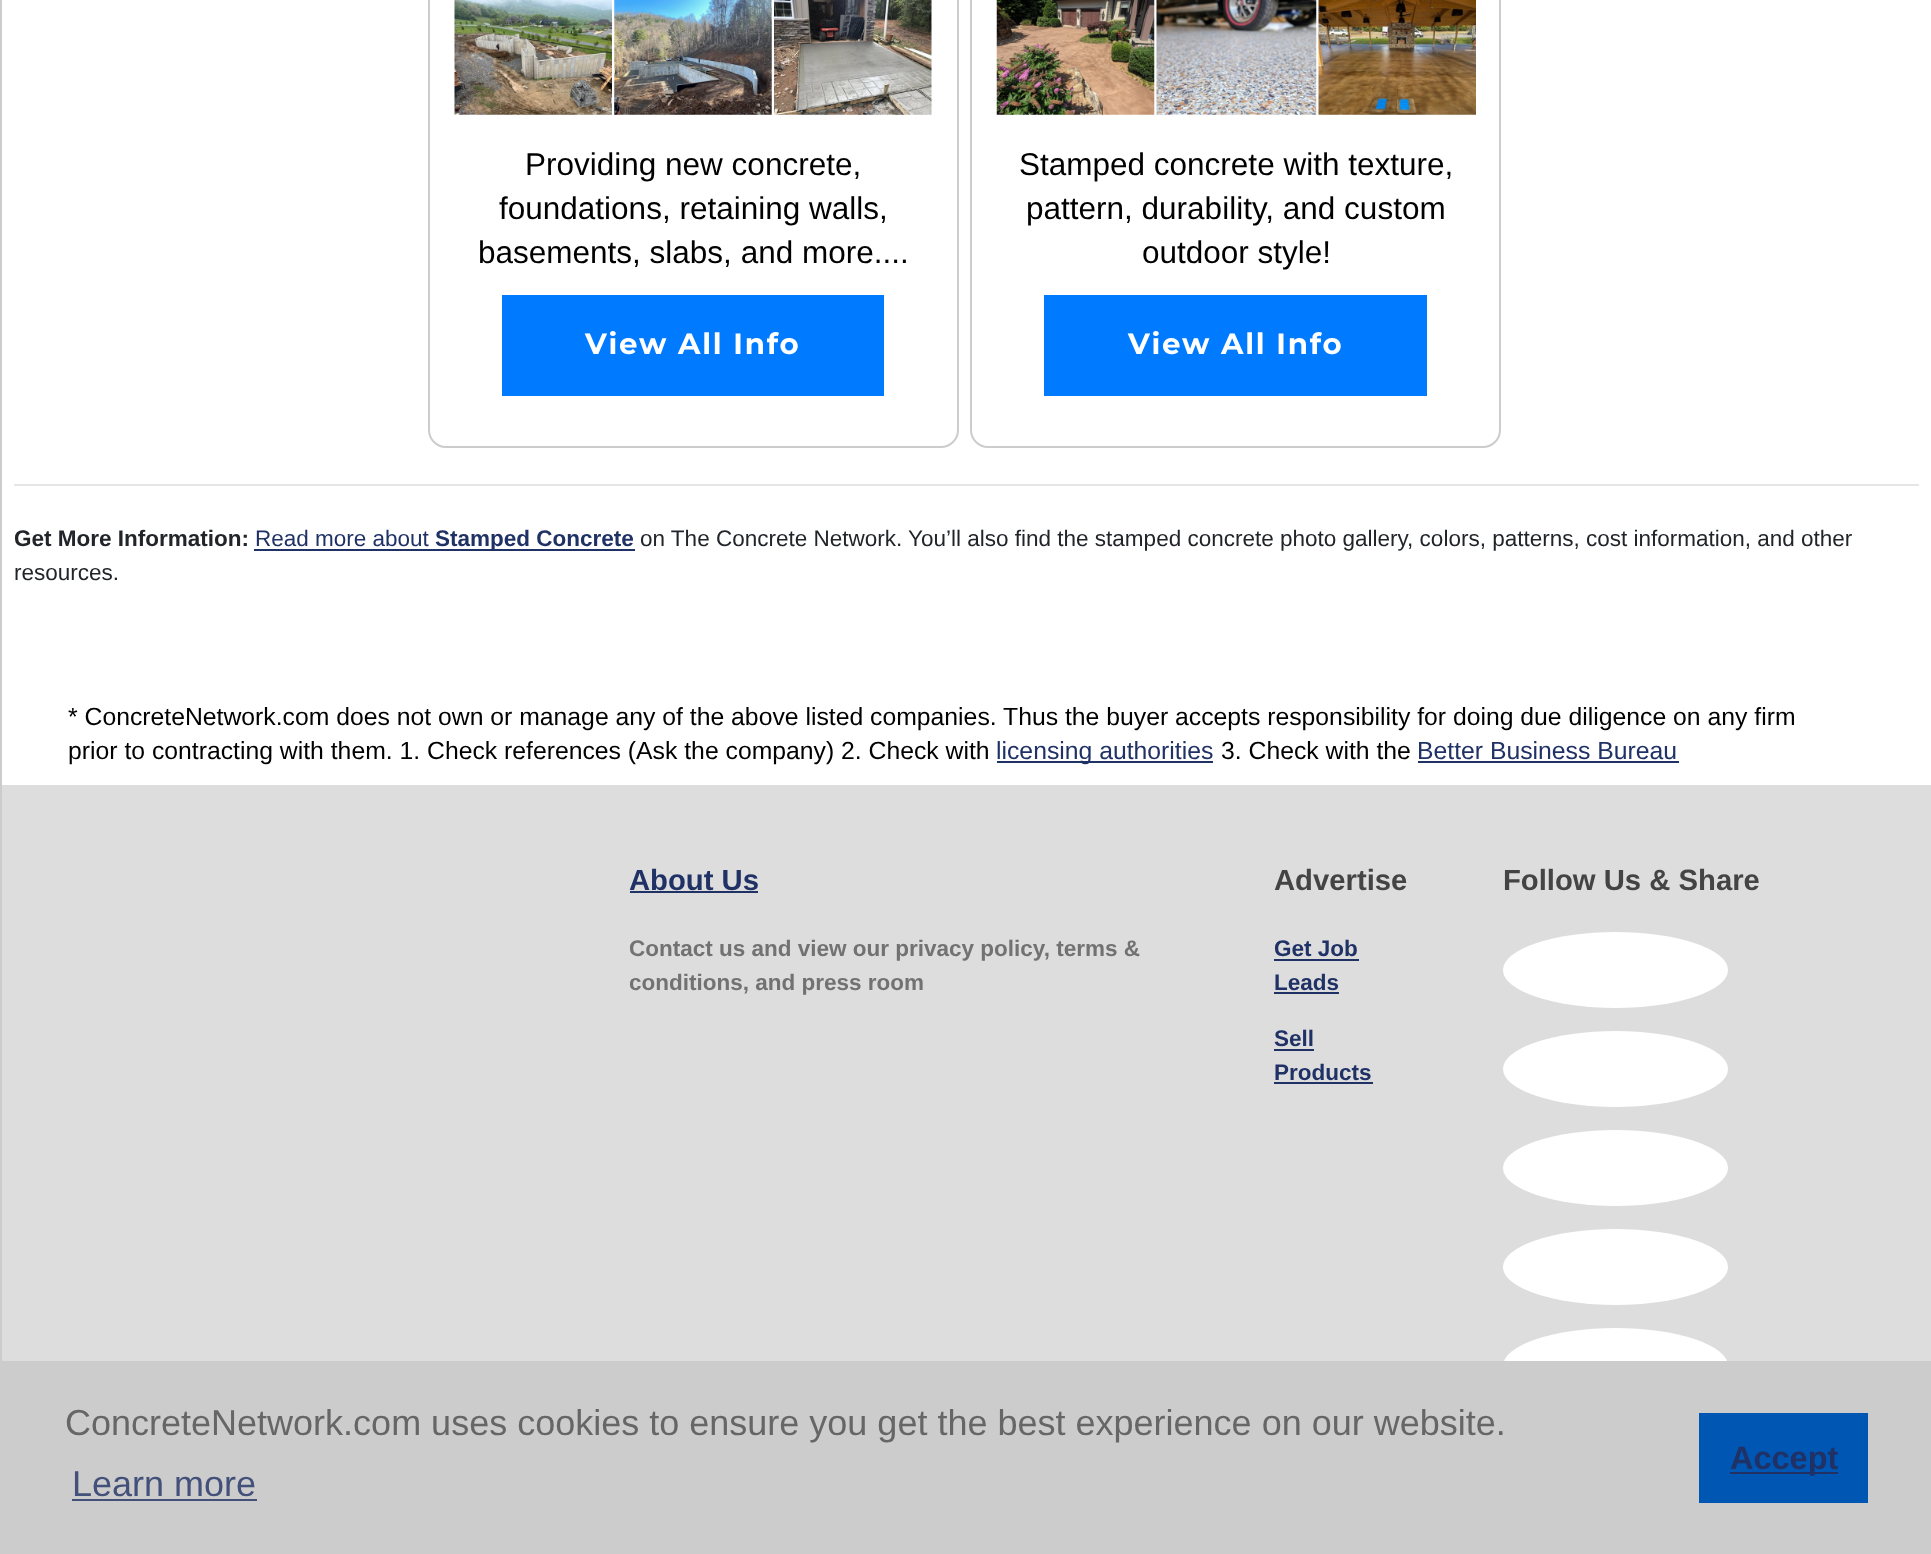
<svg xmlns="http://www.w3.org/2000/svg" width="1931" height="1554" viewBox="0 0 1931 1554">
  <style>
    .t1 { font: 31.5px Liberation Sans; fill: #000; }
    .t2 { font: 100 29.25px Montserrat; letter-spacing: 1.75px; fill: #fff; }
    .t3 { font: bold 22.5px Liberation Sans; fill: #212529; }
    .t4 { font: 22.5px Liberation Sans; fill: #1f3165; }
    .t5 { font: bold 22.5px Liberation Sans; fill: #1f3165; }
    .t6 { font: 22.5px Liberation Sans; fill: #212529; }
    .t7 { font: 24.75px Liberation Sans; fill: #000; }
    .t8 { font: 24.75px Liberation Sans; fill: #1f3165; }
    .t9 { font: bold 29.25px Liberation Sans; fill: #1f3165; }
    .t10 { font: bold 22.5px Liberation Sans; fill: #727272; }
    .t11 { font: bold 29.25px Liberation Sans; fill: #444; }
    .t12 { font: 36px Liberation Sans; fill: #666; }
    .t13 { font: 36px Liberation Sans; fill: #42507a; }
    .t14 { font: bold 32.5px Liberation Sans; fill: #1f3165; }
  </style>
  <rect width="100%" height="100%" fill="#fff"/>
  <rect x="0" y="0" width="2" height="1361" fill="#ccc"/>
  <rect x="429" y="-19" width="529" height="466" rx="17" fill="none" stroke="#ccc" stroke-width="2"/>
  <image x="454" y="0" width="158" height="115" href="images/1.png"/>
  <image x="614" y="0" width="158" height="115" href="images/2.png"/>
  <image x="774" y="0" width="158" height="115" href="images/3.png"/>
  <text x="525" y="175" class="t1">Providing new concrete,</text>
  <text x="499" y="219" class="t1">foundations, retaining walls,</text>
  <text x="478" y="263" class="t1">basements, slabs, and more....</text>
  <rect x="502" y="295" width="382" height="101" fill="#007bff"/>
  <text x="585" y="354" class="t2">View All Info</text>
  <rect x="971" y="-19" width="529" height="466" rx="17" fill="none" stroke="#ccc" stroke-width="2"/>
  <image x="996" y="0" width="159" height="115" href="images/4.png"/>
  <image x="1156" y="0" width="161" height="115" href="images/5.png"/>
  <image x="1318" y="0" width="158" height="115" href="images/6.png"/>
  <text x="1019" y="175" class="t1">Stamped concrete with texture,</text>
  <text x="1026" y="219" class="t1">pattern, durability, and custom</text>
  <text x="1142" y="263" class="t1">outdoor style!</text>
  <rect x="1044" y="295" width="383" height="101" fill="#007bff"/>
  <text x="1128" y="354" class="t2">View All Info</text>
  <rect x="14" y="484" width="1905" height="2" fill="#e6e6e6"/>
  <text x="14" y="546" class="t3">Get More Information:</text>
  <text x="255" y="546" class="t4">Read more about</text>
  <rect x="254" y="549" width="381" height="2" fill="#1f3165"/>
  <text x="435" y="546" class="t5">Stamped Concrete</text>
  <text x="640" y="546" class="t6">on The Concrete Network. You’ll also find the stamped concrete photo gallery, colors, patterns, cost information, and other</text>
  <text x="14" y="580" class="t6">resources.</text>
  <text x="68" y="725" class="t7">* ConcreteNetwork.com does not own or manage any of the above listed companies. Thus the buyer accepts responsibility for doing due diligence on any firm</text>
  <text x="68" y="759" class="t7">prior to contracting with them. 1. Check references (Ask the company) 2. Check with</text>
  <rect x="997" y="761" width="216" height="2" fill="#1f3165"/>
  <text x="996" y="759" class="t8">licensing authorities</text>
  <text x="1221" y="759" class="t7">3. Check with the</text>
  <text x="1417" y="759" class="t8">Better Business Bureau</text>
  <rect x="1418" y="761" width="261" height="2" fill="#1f3165"/>
  <rect x="2" y="785" width="1929" height="576" fill="#ddd"/>
  <text x="629" y="890" class="t9">About Us</text>
  <rect x="630" y="891" width="128" height="2" fill="#1f3165"/>
  <text x="629" y="956" class="t10">Contact us and view our privacy policy, terms &amp;</text>
  <text x="629" y="990" class="t10">conditions, and press room</text>
  <text x="1274" y="890" class="t11">Advertise</text>
  <text x="1274" y="956" class="t5">Get Job</text>
  <rect x="1274" y="959" width="85" height="2" fill="#1f3165"/>
  <text x="1274" y="990" class="t5">Leads</text>
  <rect x="1274" y="992" width="65" height="2" fill="#1f3165"/>
  <text x="1274" y="1046" class="t5">Sell</text>
  <rect x="1274" y="1049" width="40" height="2" fill="#1f3165"/>
  <text x="1274" y="1080" class="t5">Products</text>
  <rect x="1274" y="1082" width="99" height="2" fill="#1f3165"/>
  <text x="1503" y="890" class="t11">Follow Us &amp; Share</text>
  <ellipse cx="1615.5" cy="970" rx="112.5" ry="38" fill="#fff"/>
  <ellipse cx="1615.5" cy="1069" rx="112.5" ry="38" fill="#fff"/>
  <ellipse cx="1615.5" cy="1168" rx="112.5" ry="38" fill="#fff"/>
  <ellipse cx="1615.5" cy="1267" rx="112.5" ry="38" fill="#fff"/>
  <ellipse cx="1615.5" cy="1366" rx="112.5" ry="38" fill="#fff"/>
  <rect x="0" y="1361" width="1931" height="193" fill="#ccc"/>
  <text x="65" y="1435" class="t12">ConcreteNetwork.com uses cookies to ensure you get the best experience on our website.</text>
  <text x="72" y="1496" class="t13">Learn more</text>
  <rect x="72" y="1499" width="185" height="2" fill="#42507a"/>
  <rect x="1699" y="1413" width="169" height="90" fill="#0056b3"/>
  <rect x="1730" y="1472" width="108" height="2" fill="#1f3165"/>
  <text x="1730" y="1469" class="t14">Accept</text>
</svg>
